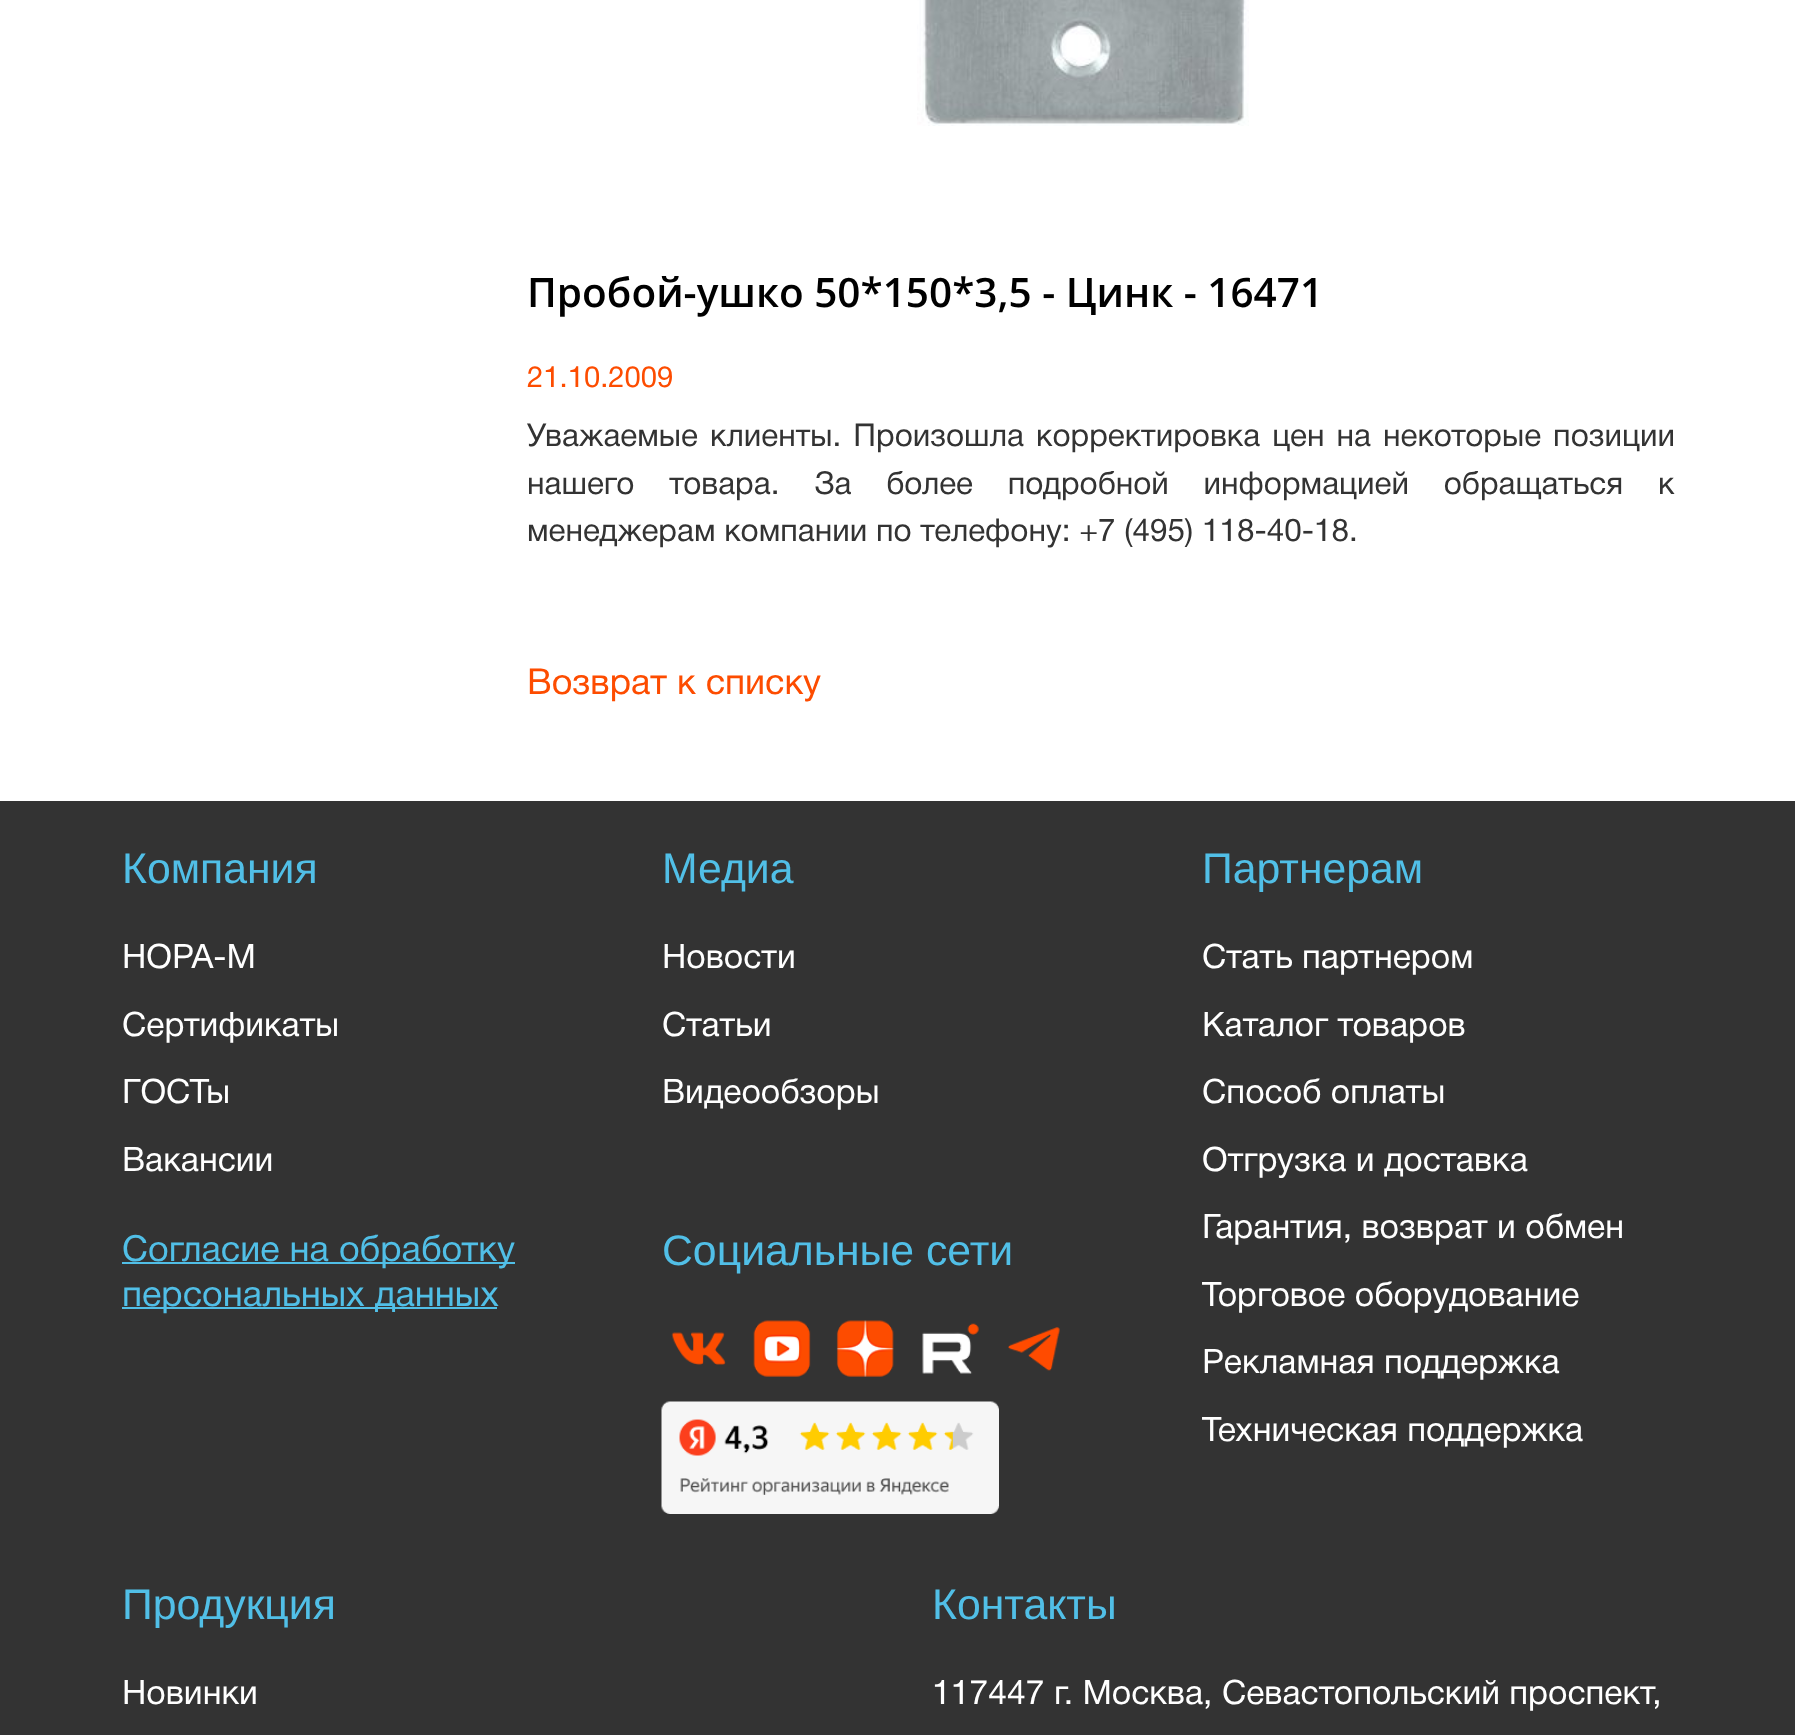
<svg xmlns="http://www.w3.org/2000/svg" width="1795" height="1735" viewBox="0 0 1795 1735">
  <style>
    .t1 { font: 600 40.5px Open Sans; fill: #000; }
    .t2 { font: 29.25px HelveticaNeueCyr; fill: #fd4c00; }
    .t3 { font: 31.5px HelveticaNeueCyr; fill: #333; }
    .t4 { font: 36px HelveticaNeueCyr; fill: #fd4c00; }
    .t5 { font: 42.75px Liberation Sans; fill: #51bfe7; }
    .t6 { font: 33.75px HelveticaNeueCyr; fill: #fff; }
    .t7 { font: 36px HelveticaNeueCyr; fill: #51bfe7; }
  </style>
  <rect width="100%" height="100%" fill="#333"/>
  <rect x="0" y="0" width="1795" height="801" fill="#fff"/>
  <image x="917" y="0" width="332" height="126" href="images/1.png"/>
  <text x="527" y="307" class="t1">Пробой-ушко 50*150*3,5 - Цинк - 16471</text>
  <text x="527" y="387" class="t2">21.10.2009</text>
  <text x="527" y="446" word-spacing="3.25" class="t3">Уважаемые клиенты. Произошла корректировка цен на некоторые позиции</text>
  <text x="527" y="494" word-spacing="26" class="t3">нашего товара. За более подробной информацией обращаться к</text>
  <text x="527" y="541" class="t3">менеджерам компании по телефону: +7 (495) 118-40-18.</text>
  <text x="527" y="694" class="t4">Возврат к списку</text>
  <text x="122" y="883" class="t5">Компания</text>
  <text x="122" y="968" class="t6">НОРА-М</text>
  <text x="122" y="1036" class="t6">Сертификаты</text>
  <text x="122" y="1103" class="t6">ГОСТы</text>
  <text x="122" y="1171" class="t6">Вакансии</text>
  <rect x="122" y="1262" width="393" height="2" fill="#51bfe7"/>
  <text x="122" y="1261" class="t7">Согласие на обработку</text>
  <rect x="122" y="1307" width="375" height="2" fill="#51bfe7"/>
  <text x="122" y="1306" class="t7">персональных данных</text>
  <text x="662" y="883" class="t5">Медиа</text>
  <text x="662" y="968" class="t6">Новости</text>
  <text x="662" y="1036" class="t6">Статьи</text>
  <text x="662" y="1103" class="t6">Видеообзоры</text>
  <text x="662" y="1265" class="t5">Социальные сети</text>
  <image x="671" y="1332" width="55" height="33" href="images/2.png"/>
  <image x="753" y="1320" width="58" height="57" href="images/3.png"/>
  <image x="836" y="1320" width="58" height="57" href="images/4.png"/>
  <image x="922" y="1323" width="57" height="51" href="images/5.png"/>
  <image x="1008" y="1327" width="52" height="44" href="images/6.png"/>
  <image x="661" y="1401" width="338" height="113" href="images/7.png"/>
  <text x="1202" y="883" class="t5">Партнерам</text>
  <text x="1202" y="968" class="t6">Стать партнером</text>
  <text x="1202" y="1036" class="t6">Каталог товаров</text>
  <text x="1202" y="1103" class="t6">Способ оплаты</text>
  <text x="1202" y="1171" class="t6">Отгрузка и доставка</text>
  <text x="1202" y="1238" class="t6">Гарантия, возврат и обмен</text>
  <text x="1202" y="1306" class="t6">Торговое оборудование</text>
  <text x="1202" y="1373" class="t6">Рекламная поддержка</text>
  <text x="1202" y="1441" class="t6">Техническая поддержка</text>
  <text x="122" y="1619" class="t5">Продукция</text>
  <text x="122" y="1704" class="t6">Новинки</text>
  <text x="932" y="1619" class="t5">Контакты</text>
  <text x="932" y="1704" class="t6">117447 г. Москва, Севастопольский проспект,</text>
</svg>
